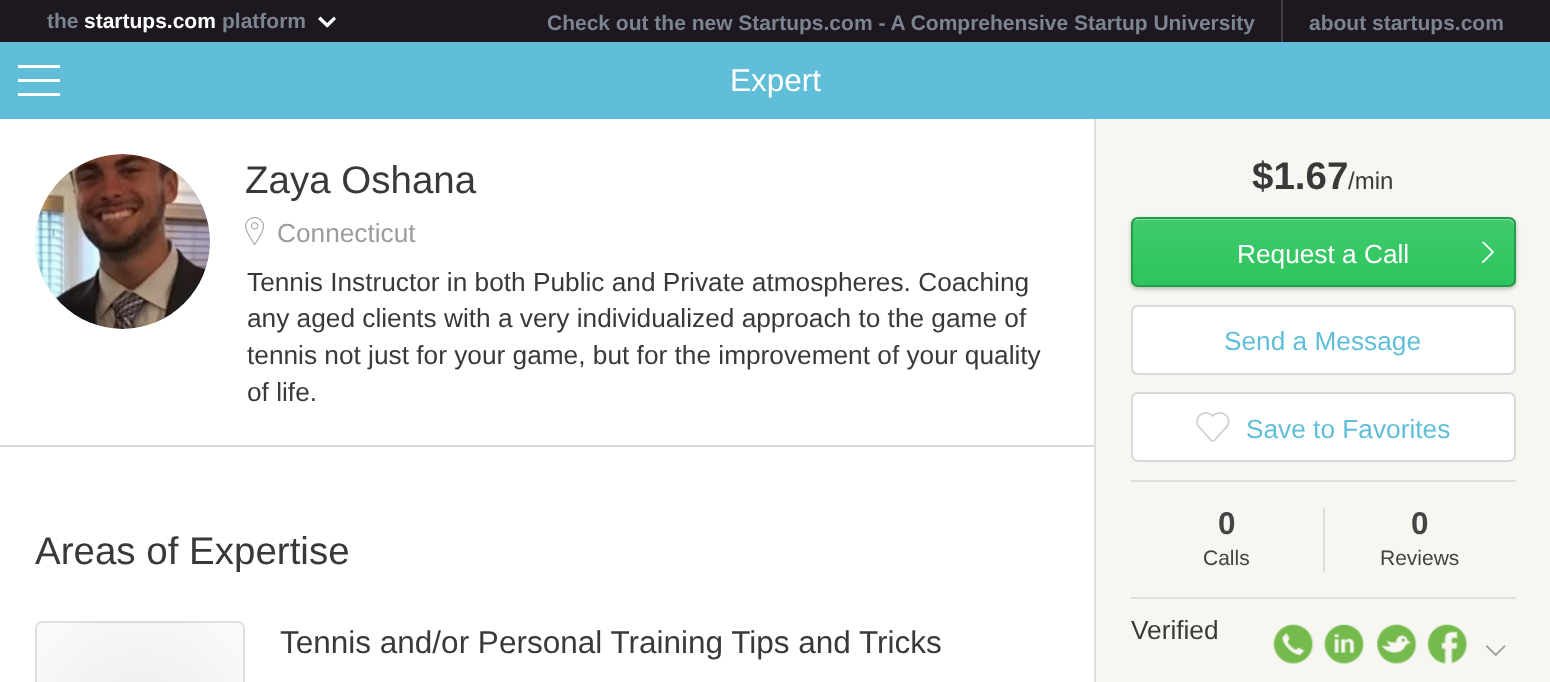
<svg xmlns="http://www.w3.org/2000/svg" width="1550" height="682" viewBox="0 0 1550 682">
  <style>
    .t1 { font: bold 21px Liberation Sans; fill: #7b8490; }
    .t2 { font: bold 21px Liberation Sans; fill: #fff; }
    .t3 { font: 31.5px Liberation Sans; fill: #fff; }
    .t4 { font: 38.5px Liberation Sans; fill: #393939; }
    .t5 { font: 26.25px Liberation Sans; fill: #9c9c9c; }
    .t6 { font: 26.25px Liberation Sans; fill: #393939; }
    .t7 { font: bold 38.5px Liberation Sans; fill: #393939; }
    .t8 { font: 24px Liberation Sans; fill: #393939; }
    .t9 { font: 26.25px Liberation Sans; fill: #fff; }
    .t10 { font: 26.25px Liberation Sans; fill: #61bed9; }
    .t11 { font: bold 31.5px Liberation Sans; fill: #444; }
    .t12 { font: 21px Liberation Sans; fill: #444; }
    .t13 { font: 31.5px Liberation Sans; fill: #393939; }
  </style>
  <defs>
    <clipPath id="clip1"><rect x="1131" y="217" width="385" height="70" rx="7"/></clipPath>
    <linearGradient id="g1" gradientUnits="userSpaceOnUse" x1="1323" y1="219" x2="1323" y2="285"><stop offset="0" stop-color="#41ca6d"/><stop offset="1" stop-color="#2cc55d"/></linearGradient>
    <radialGradient id="g2" gradientUnits="userSpaceOnUse" cx="140" cy="726" r="148"><stop offset="0" stop-color="#ececec"/><stop offset="1" stop-color="#fbfbfb"/></radialGradient>
  </defs>
  <rect width="100%" height="100%" fill="#1d181f"/>
  <text x="47" y="28" class="t1">the</text>
  <text x="84" y="28" class="t2">startups.com</text>
  <text x="222" y="28" class="t1">platform</text>
  <path d="M329 25L327 27.5L318 19L320.5 16.5Z" fill="#fff"/>
  <path d="M327.5 27.5L325 25L334 16.5L336 19Z" fill="#fff"/>
  <rect x="1281" y="0" width="2" height="42" fill="#3e3d47"/>
  <text x="547" y="30" class="t1">Check out the new Startups.com - A Comprehensive Startup University</text>
  <text x="1309" y="30" class="t1">about startups.com</text>
  <rect x="0" y="119" width="1094" height="563" fill="#fff"/>
  <rect x="0" y="42" width="1550" height="77" fill="#61bed9"/>
  <path d="M18 65V68H60V65ZM18 82V79H60V82ZM18 93V96H60V93Z" fill="#fff" fill-rule="evenodd"/>
  <text x="730" y="91" class="t3">Expert</text>
  <circle cx="122.5" cy="241.5" r="87.5" fill="#d9d9d9"/>
  <image x="35" y="154" width="175" height="175" href="images/1.png"/>
  <text x="245" y="193" class="t4">Zaya Oshana</text>
  <image x="245" y="217" width="19" height="28" href="images/2.png"/>
  <text x="277" y="242" class="t5">Connecticut</text>
  <text x="247" y="291" class="t6">Tennis Instructor in both Public and Private atmospheres. Coaching</text>
  <text x="247" y="327" class="t6">any aged clients with a very individualized approach to the game of</text>
  <text x="247" y="364" class="t6">tennis not just for your game, but for the improvement of your quality</text>
  <text x="247" y="401" class="t6">of life.</text>
  <rect x="1096" y="119" width="454" height="563" fill="#f7f6f1"/>
  <rect x="1094" y="119" width="2" height="563" fill="#e0ded9"/>
  <text x="1252" y="189" class="t7">$1.67</text>
  <text x="1348" y="189" class="t8">/min</text>
  <rect x="1131" y="219" width="385" height="70" rx="7" fill="#00000040" filter="blur(2px)"/>
  <g clip-path="url(#clip1)">
    <rect x="1131" y="219" width="385" height="66" fill="url(#g1)"/>
  </g>
  <path d="M1138 220H1508C1511 220 1514 223 1514 226V224C1514 221 1512 219 1509 219H1137C1134 219 1132 221 1132 224V226C1132 223 1135 220 1138 220Z" fill="#83dda0"/>
  <rect x="1132" y="218" width="383" height="68" rx="6" fill="none" stroke="#239d4a" stroke-width="2"/>
  <text x="1237" y="263" class="t9">Request a Call</text>
  <image x="1481" y="242" width="14" height="22" href="images/3.png"/>
  <rect x="1132" y="306" width="383" height="68" rx="6" fill="#fff" stroke="#d9d9d9" stroke-width="2"/>
  <text x="1224" y="350" class="t10">Send a Message</text>
  <rect x="1132" y="393" width="383" height="68" rx="6" fill="#fff" stroke="#d9d9d9" stroke-width="2"/>
  <image x="1196" y="412" width="34" height="30" href="images/4.png"/>
  <text x="1246" y="438" class="t10">Save to Favorites</text>
  <rect x="1131" y="480" width="385" height="2" fill="#e0ded9"/>
  <rect x="1323" y="508" width="2" height="64" fill="#e0ded9"/>
  <text x="1218" y="534" class="t11">0</text>
  <text x="1203" y="565" class="t12">Calls</text>
  <text x="1411" y="534" class="t11">0</text>
  <text x="1380" y="565" class="t12">Reviews</text>
  <rect x="1131" y="597" width="385" height="2" fill="#e0ded9"/>
  <text x="1131" y="639" class="t6">Verified</text>
  <image x="1273" y="624" width="41" height="40" href="images/5.png"/>
  <image x="1324" y="624" width="40" height="40" href="images/6.png"/>
  <image x="1377" y="624" width="40" height="40" href="images/7.png"/>
  <image x="1427" y="624" width="41" height="40" href="images/8.png"/>
  <image x="1486" y="645" width="20" height="12" href="images/9.png"/>
  <rect x="0" y="445" width="1094" height="2" fill="#d9d9d9"/>
  <text x="35" y="564" class="t4">Areas of Expertise</text>
  <path d="M42 621H238C242 621 245 624 245 628V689H35V628C35 624 38 621 42 621Z" fill="url(#g2)"/>
  <rect x="36" y="622" width="208" height="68" rx="6" fill="none" stroke="#0000001a" stroke-width="2"/>
  <text x="280" y="653" class="t13">Tennis and/or Personal Training Tips and Tricks</text>
</svg>
